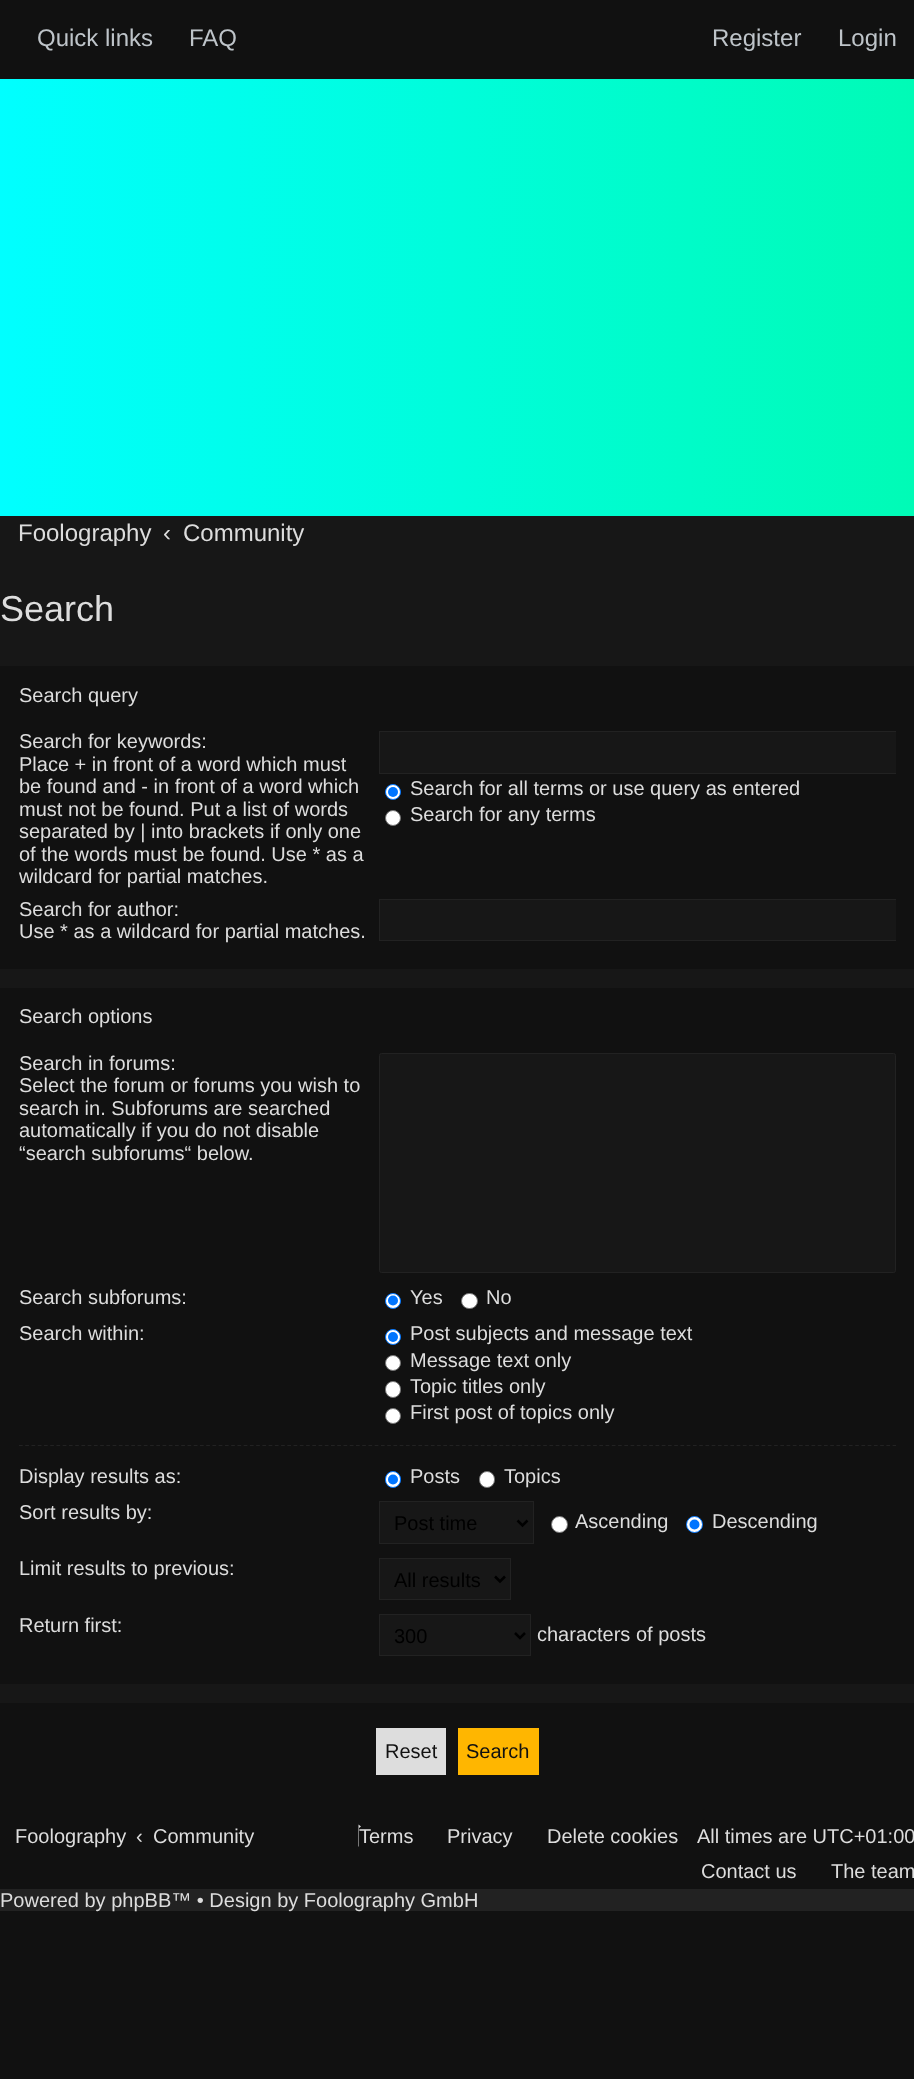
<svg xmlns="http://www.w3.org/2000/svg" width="914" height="2079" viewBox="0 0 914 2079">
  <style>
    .t1 { font: 24px Liberation Sans; fill: #bec4c9; }
    .t2 { font: 24px Liberation Sans; fill: #ddd; }
    .t3 { font: 36px Liberation Sans; fill: #ddd; }
    .t4 { font: 20px Liberation Sans; fill: #ddd; }
    .t5 { font: 20px Liberation Sans; fill: #000; }
    .t6 { font: 20px Liberation Sans; fill: #111; }
  </style>
  <defs>
    <linearGradient id="g1" gradientUnits="userSpaceOnUse" x1="0" y1="298" x2="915" y2="297"><stop offset="0" stop-color="#0ff"/><stop offset="1" stop-color="#00fbb6"/></linearGradient>
    <clipPath id="clip1"><rect x="19" y="726" width="877" height="168"/></clipPath>
    <clipPath id="clip2"><rect x="19" y="894" width="877" height="56"/></clipPath>
  </defs>
  <rect width="100%" height="100%" fill="#111"/>
  <text x="37" y="46" class="t1">Quick links</text>
  <text x="189" y="46" class="t1">FAQ</text>
  <text x="712" y="46" class="t1">Register</text>
  <text x="838" y="46" class="t1">Login</text>
  <rect x="0" y="79" width="914" height="437" fill="url(#g1)"/>
  <rect x="0" y="516" width="914" height="1187" fill="#171717"/>
  <text x="18" y="541" class="t2">Foolography</text>
  <text x="163" y="541" class="t2">‹</text>
  <text x="183" y="541" class="t2">Community</text>
  <text x="0" y="621" class="t3">Search</text>
  <rect x="0" y="666" width="914" height="303" fill="#111"/>
  <text x="19" y="702" class="t4">Search query</text>
  <text x="19" y="748" class="t4">Search for keywords:</text>
  <text x="19" y="771" class="t4">Place + in front of a word which must</text>
  <text x="19" y="793" class="t4">be found and - in front of a word which</text>
  <text x="19" y="816" class="t4">must not be found. Put a list of words</text>
  <text x="19" y="838" class="t4">separated by | into brackets if only one</text>
  <text x="19" y="861" class="t4">of the words must be found. Use * as a</text>
  <text x="19" y="883" class="t4">wildcard for partial matches.</text>
  <rect x="380" y="732" width="516" height="41" fill="#171717"/>
  <g clip-path="url(#clip1)">
    <rect x="379.5" y="731.5" width="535" height="42" fill="none" stroke="#222"/>
  </g>
  <circle cx="393" cy="792" r="7.5" fill="#fff" stroke="#0075ff"/>
  <circle cx="393" cy="792" r="5" fill="#0075ff"/>
  <text x="410" y="795" class="t4">Search for all terms or use query as entered</text>
  <circle cx="393" cy="818" r="7.5" fill="#fff" stroke="#767676"/>
  <text x="410" y="821" class="t4">Search for any terms</text>
  <text x="19" y="916" class="t4">Search for author:</text>
  <text x="19" y="938" class="t4">Use * as a wildcard for partial matches.</text>
  <rect x="380" y="900" width="516" height="40" fill="#171717"/>
  <g clip-path="url(#clip2)">
    <rect x="379.5" y="899.5" width="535" height="41" fill="none" stroke="#222"/>
  </g>
  <rect x="0" y="988" width="914" height="696" fill="#111"/>
  <text x="19" y="1023" class="t4">Search options</text>
  <text x="19" y="1070" class="t4">Search in forums:</text>
  <text x="19" y="1092" class="t4">Select the forum or forums you wish to</text>
  <text x="19" y="1115" class="t4">search in. Subforums are searched</text>
  <text x="19" y="1137" class="t4">automatically if you do not disable</text>
  <text x="19" y="1160" class="t4">“search subforums“ below.</text>
  <rect x="379.5" y="1053.5" width="516" height="219" rx="2" fill="#171717" stroke="#222"/>
  <text x="19" y="1304" class="t4">Search subforums:</text>
  <circle cx="393" cy="1301" r="7.5" fill="#fff" stroke="#0075ff"/>
  <circle cx="393" cy="1300.5" r="5" fill="#0075ff"/>
  <text x="410" y="1304" class="t4">Yes</text>
  <rect x="461.5" y="1293.5" width="16" height="15" rx="7.5" fill="#fff" stroke="#767676"/>
  <text x="486" y="1304" class="t4">No</text>
  <text x="19" y="1340" class="t4">Search within:</text>
  <circle cx="393" cy="1337" r="7.5" fill="#fff" stroke="#0075ff"/>
  <circle cx="393" cy="1337" r="5" fill="#0075ff"/>
  <text x="410" y="1340" class="t4">Post subjects and message text</text>
  <circle cx="393" cy="1363" r="7.5" fill="#fff" stroke="#767676"/>
  <text x="410" y="1367" class="t4">Message text only</text>
  <rect x="385.5" y="1381.5" width="15" height="16" rx="7.5" fill="#fff" stroke="#767676"/>
  <text x="410" y="1393" class="t4">Topic titles only</text>
  <circle cx="393" cy="1416" r="7.5" fill="#fff" stroke="#767676"/>
  <text x="410" y="1419" class="t4">First post of topics only</text>
  <path d="M19 1445.5H896" fill="none" stroke="#222" stroke-width="1.2" stroke-dasharray="3.75 2.49"/>
  <text x="19" y="1483" class="t4">Display results as:</text>
  <rect x="385.5" y="1471.5" width="15" height="16" rx="7.5" fill="#fff" stroke="#0075ff"/>
  <circle cx="393" cy="1479.5" r="5" fill="#0075ff"/>
  <text x="410" y="1483" class="t4">Posts</text>
  <rect x="479.5" y="1471.5" width="15" height="16" rx="7.5" fill="#fff" stroke="#767676"/>
  <text x="504" y="1483" class="t4">Topics</text>
  <text x="19" y="1519" class="t4">Sort results by:</text>
  <rect x="379.5" y="1501.5" width="154" height="42" fill="#171717" stroke="#222"/>
  <path d="M517.5 1520.5L522.5 1525.5L527.5 1520.5" fill="none" stroke="#000" stroke-width="2.5"/>
  <text x="394" y="1530" class="t5">Post time</text>
  <circle cx="559.5" cy="1524.5" r="8" fill="#fff" stroke="#767676"/>
  <text x="575" y="1528" class="t4">Ascending</text>
  <circle cx="694.5" cy="1524.5" r="8" fill="#fff" stroke="#0075ff"/>
  <circle cx="694.5" cy="1524.5" r="5" fill="#0075ff"/>
  <text x="712" y="1528" class="t4">Descending</text>
  <text x="19" y="1575" class="t4">Limit results to previous:</text>
  <rect x="379.5" y="1558.5" width="131" height="41" fill="#171717" stroke="#222"/>
  <path d="M495 1576.5L500 1581.5L505 1576.5" fill="none" stroke="#000" stroke-width="2.5"/>
  <text x="394" y="1587" class="t5">All results</text>
  <text x="19" y="1632" class="t4">Return first:</text>
  <rect x="379.5" y="1614.5" width="151" height="41" fill="#171717" stroke="#222"/>
  <path d="M515 1633L520 1638L525 1633" fill="none" stroke="#000" stroke-width="2.5"/>
  <text x="394" y="1643" class="t5">300</text>
  <text x="537" y="1641" class="t4">characters of posts</text>
  <rect x="376" y="1728" width="70" height="47" fill="#ddd"/>
  <text x="385" y="1758" class="t6">Reset</text>
  <rect x="458" y="1728" width="81" height="47" fill="#ffb600"/>
  <text x="466" y="1758" class="t6">Search</text>
  <text x="15" y="1843" class="t4">Foolography</text>
  <text x="136" y="1843" class="t4">‹</text>
  <text x="153" y="1843" class="t4">Community</text>
  <path d="M361 1826.5L359 1828V1846.5H358.5V1824.5Z" fill="#ddd"/>
  <text x="359" y="1843" class="t4">Terms</text>
  <text x="447" y="1843" class="t4">Privacy</text>
  <text x="547" y="1843" class="t4">Delete cookies</text>
  <text x="697" y="1843" class="t4">All times are UTC+01:00</text>
  <text x="701" y="1878" class="t4">Contact us</text>
  <text x="831" y="1878" class="t4">The team</text>
  <rect x="0" y="1889" width="914" height="22" fill="#222"/>
  <text x="0" y="1907" class="t4">Powered by phpBB™ • Design by Foolography GmbH</text>
</svg>
